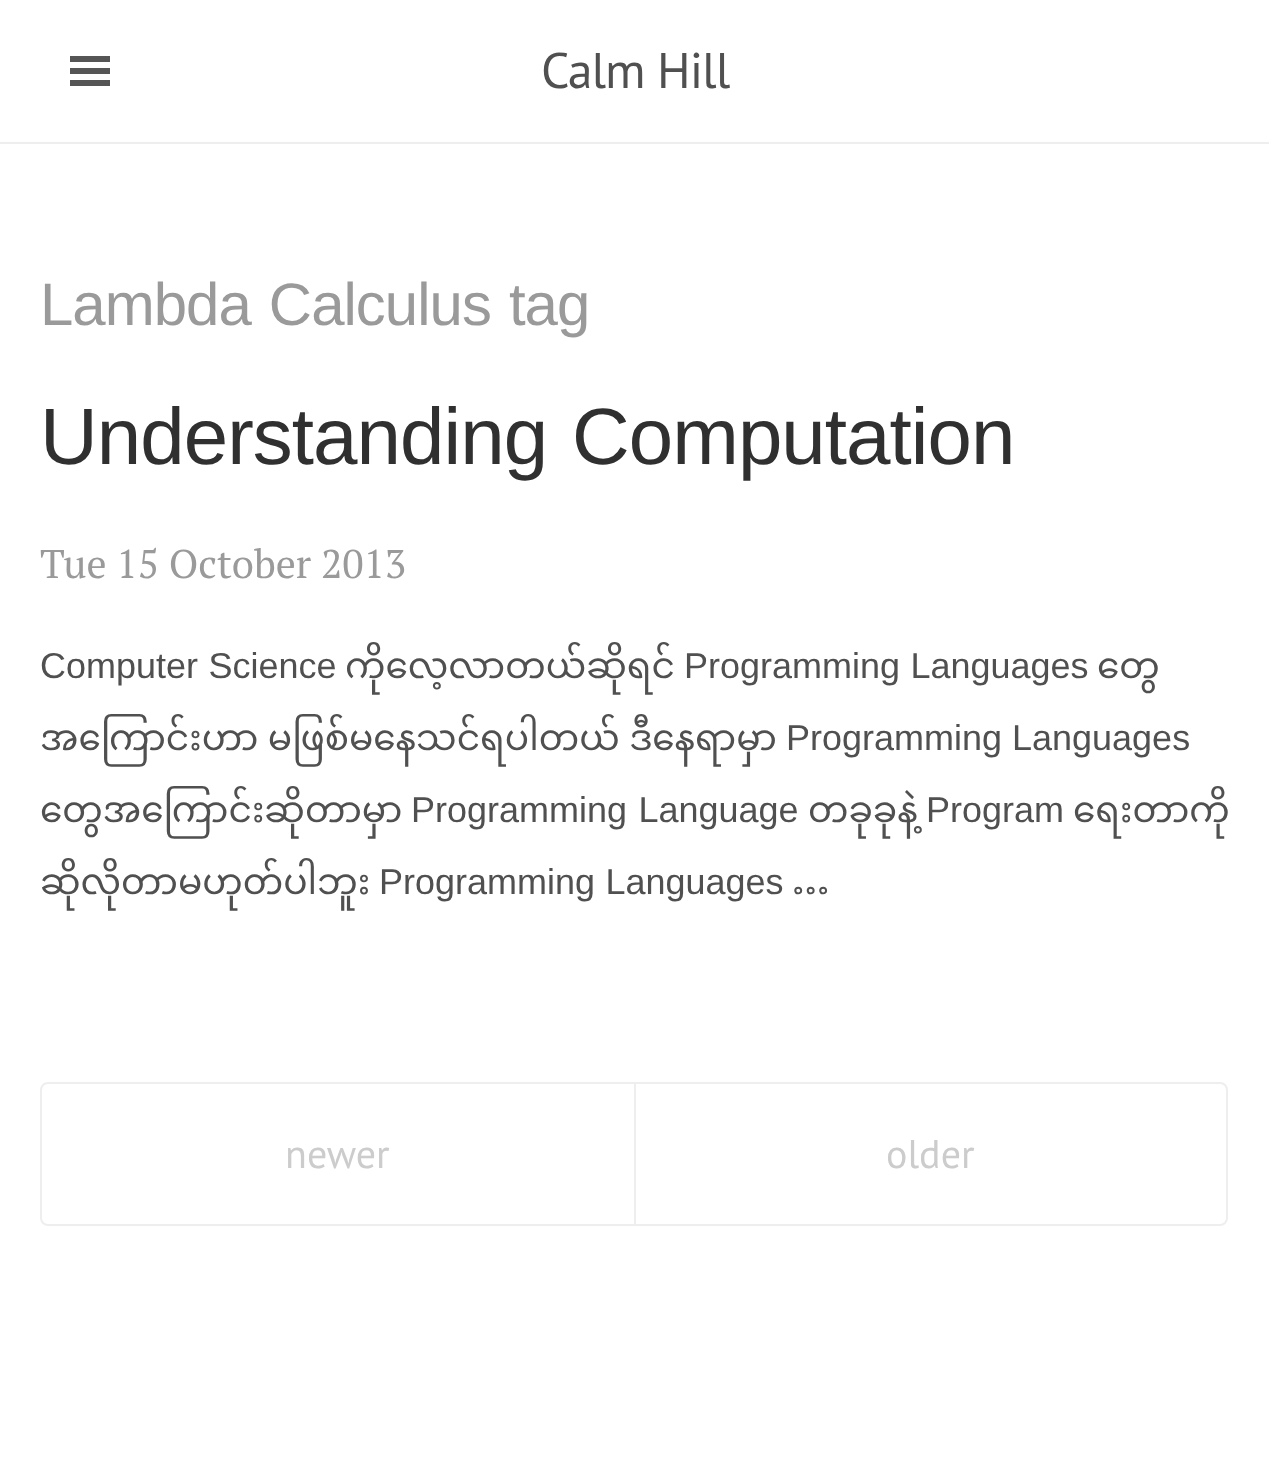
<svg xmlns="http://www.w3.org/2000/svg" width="1269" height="1464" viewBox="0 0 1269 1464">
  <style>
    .t1 { font: 50px PT Sans; letter-spacing: -1px; fill: #505050; }
    .t2 { font: 60px TharLon; letter-spacing: -1px; fill: #9a9a9a; }
    .t3 { font: 80px TharLon; letter-spacing: -1px; fill: #303030; }
    .t4 { font: 40px PT Serif; fill: #9a9a9a; }
    .t5 { font: 36px TharLon; fill: #505050; }
    .t6 { font: 36px Noto Sans Myanmar; fill: #505050; }
    .t7 { font: 40px PT Sans; fill: #ccc; }
  </style>
  <rect width="100%" height="100%" fill="#fff"/>
  <rect x="70" y="56" width="40" height="6" fill="#555"/>
  <rect x="70" y="68" width="40" height="6" fill="#555"/>
  <rect x="70" y="80" width="40" height="6" fill="#555"/>
  <rect x="0" y="142" width="1269" height="2" fill="#eee"/>
  <text x="541" y="88" class="t1">Calm Hill</text>
  <text x="40" y="325" class="t2">Lambda Calculus tag</text>
  <text x="40" y="464" class="t3">Understanding</text>
  <text x="572" y="464" class="t3">Computation</text>
  <text x="40" y="578" class="t4">Tue 15 October 2013</text>
  <text x="40" y="678" word-spacing="-1" class="t5">Computer Science</text>
  <text x="345" y="678" class="t6">ကိုလေ့လာတယ်ဆိုရင်</text>
  <text x="684" y="678" word-spacing="-1" class="t5">Programming Languages</text>
  <text x="1097" y="678" class="t6">တွေ</text>
  <text x="40" y="750" class="t6">အကြောင်းဟာ မဖြစ်မနေသင်ရပါတယ် ဒီနေရာမှာ</text>
  <text x="786" y="750" class="t5">Programming</text>
  <text x="1012" y="750" class="t5">Languages</text>
  <text x="40" y="822" class="t6">တွေအကြောင်းဆိုတာမှာ</text>
  <text x="411" y="822" class="t5">Programming Language</text>
  <text x="808" y="822" class="t6">တခုခုနဲ့</text>
  <text x="926" y="822" class="t5">Program</text>
  <text x="1073" y="822" class="t6">ရေးတာကို</text>
  <text x="40" y="894" class="t6">ဆိုလိုတာမဟုတ်ပါဘူး</text>
  <text x="379" y="894" word-spacing="-1" class="t5">Programming Languages</text>
  <text x="792" y="894" class="t6">…</text>
  <path d="M48 1083H635V1225H48C44 1225 41 1222 41 1218V1090C41 1086 44 1083 48 1083Z" fill="none" stroke="#eee" stroke-width="2"/>
  <text x="285" y="1168" class="t7">newer</text>
  <path d="M635 1083H1220C1224 1083 1227 1086 1227 1090V1218C1227 1222 1224 1225 1220 1225H635Z" fill="none" stroke="#eee" stroke-width="2"/>
  <text x="886" y="1168" class="t7">older</text>
</svg>
